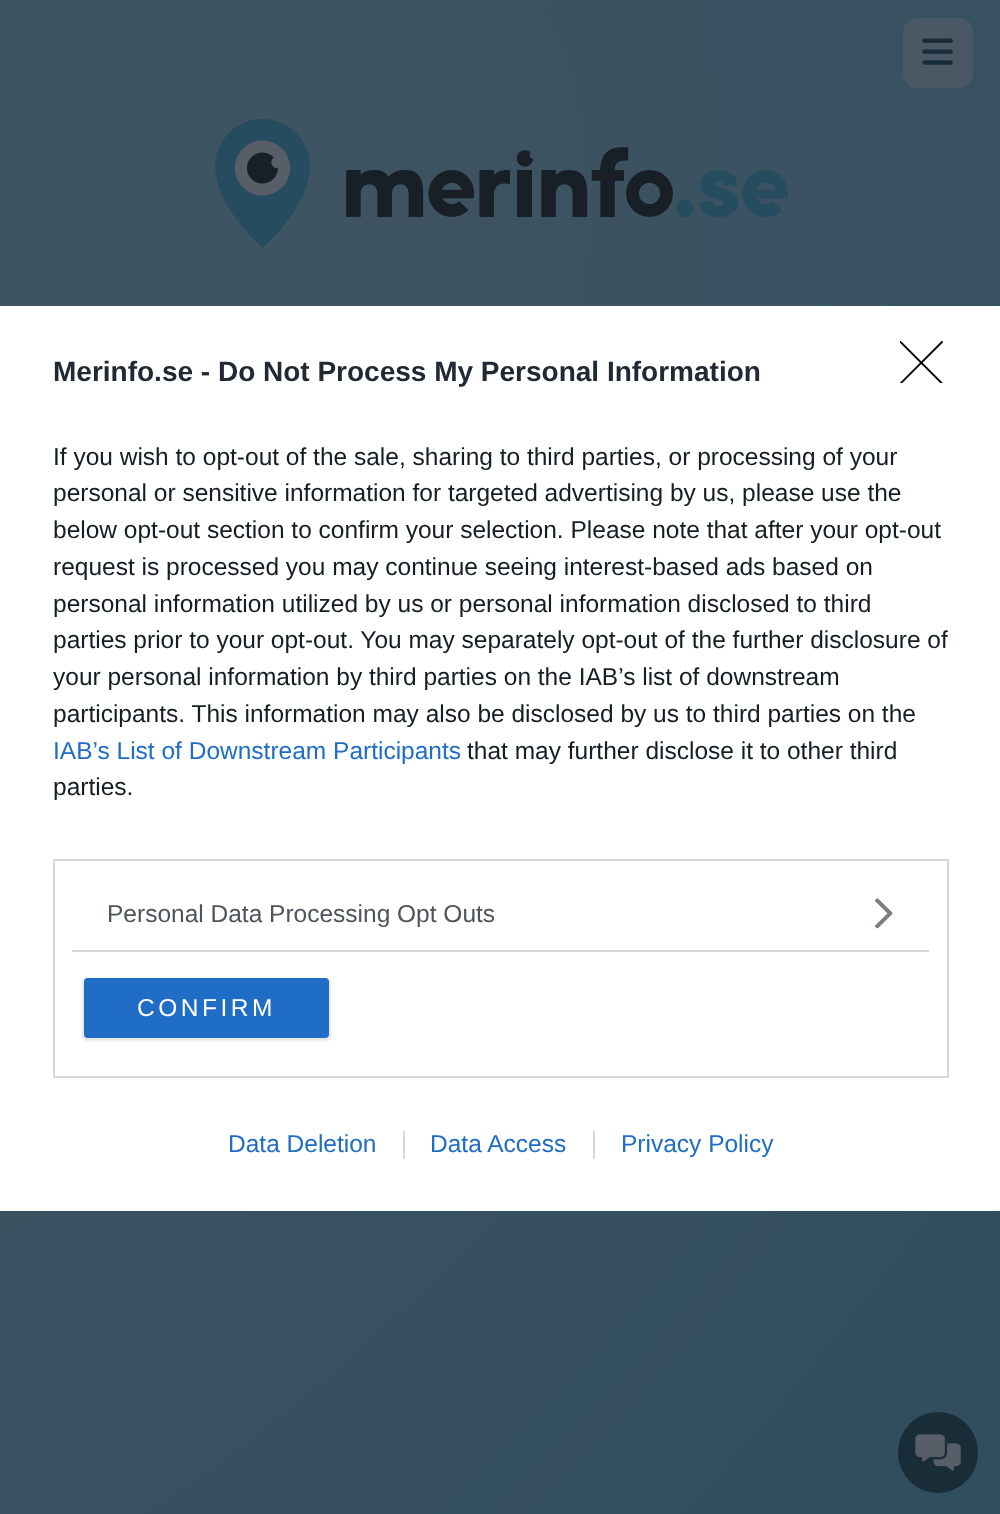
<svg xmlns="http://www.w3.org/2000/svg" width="1000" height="1514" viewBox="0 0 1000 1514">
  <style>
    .t1 { font: bold 28px Liberation Sans; fill: #212934; }
    .t2 { font: 24.5px Liberation Sans; fill: #141e23; }
    .t3 { font: 24.5px Liberation Sans; fill: #206dc5; }
    .t4 { font: 24.5px Liberation Sans; fill: #4d545d; }
    .t5 { font: 24.5px Liberation Sans; letter-spacing: 3.5px; fill: #fff; }
  </style>
  <defs>
    <clipPath id="clip1"><rect x="900" y="341" width="43" height="42"/></clipPath>
  </defs>
  <rect width="100%" height="100%" fill="#fff"/>
  <image x="0" y="0" width="1000" height="1514" href="images/1.png"/>
  <rect x="903" y="18" width="70" height="70" rx="14" fill="#595f6780"/>
  <image x="922" y="38" width="31" height="27" href="images/2.png"/>
  <image x="215" y="119" width="573" height="129" href="images/3.png"/>
  <rect x="898" y="1412" width="80" height="81" rx="40" fill="#192d39"/>
  <image x="915" y="1434" width="46" height="37" href="images/4.png"/>
  <rect x="0" y="306" width="1000" height="905" fill="#fff"/>
  <g clip-path="url(#clip1)">
    <path d="M900.5 342L942 383.5M942 342L900.5 383.5" fill="none" stroke="#000" stroke-width="1.8" stroke-linecap="round" stroke-linejoin="round"/>
  </g>
  <text x="53" y="381" class="t1">Merinfo.se - Do Not Process My Personal Information</text>
  <text x="53" y="465" class="t2">If you wish to opt-out of the sale, sharing to third parties, or processing of your</text>
  <text x="53" y="501" class="t2">personal or sensitive information for targeted advertising by us, please use the</text>
  <text x="53" y="538" class="t2">below opt-out section to confirm your selection. Please note that after your opt-out</text>
  <text x="53" y="575" class="t2">request is processed you may continue seeing interest-based ads based on</text>
  <text x="53" y="612" class="t2">personal information utilized by us or personal information disclosed to third</text>
  <text x="53" y="648" class="t2">parties prior to your opt-out. You may separately opt-out of the further disclosure of</text>
  <text x="53" y="685" class="t2">your personal information by third parties on the IAB’s list of downstream</text>
  <text x="53" y="722" class="t2">participants. This information may also be disclosed by us to third parties on the</text>
  <text x="53" y="759" class="t3">IAB’s List of Downstream Participants</text>
  <text x="467" y="759" class="t2">that may further disclose it to other third</text>
  <text x="53" y="795" class="t2">parties.</text>
  <rect x="54" y="860" width="894" height="217" fill="none" stroke="#d8d8d8" stroke-width="2"/>
  <rect x="72" y="950" width="857" height="2" fill="#d8d8d8"/>
  <text x="107" y="922" class="t4">Personal Data Processing Opt Outs</text>
  <image x="875" y="898" width="18" height="31" href="images/5.png"/>
  <rect x="82" y="978" width="249" height="63" rx="5" fill="#0000001a" filter="blur(1px)"/>
  <rect x="84" y="978" width="245" height="60" rx="4" fill="#206dc5"/>
  <text x="137" y="1016" class="t5">CONFIRM</text>
  <text x="228" y="1152" class="t3">Data Deletion</text>
  <text x="430" y="1152" class="t3">Data Access</text>
  <rect x="403" y="1131" width="2" height="28" fill="#d8d8d8"/>
  <text x="621" y="1152" class="t3">Privacy Policy</text>
  <rect x="593" y="1131" width="2" height="28" fill="#d8d8d8"/>
</svg>
